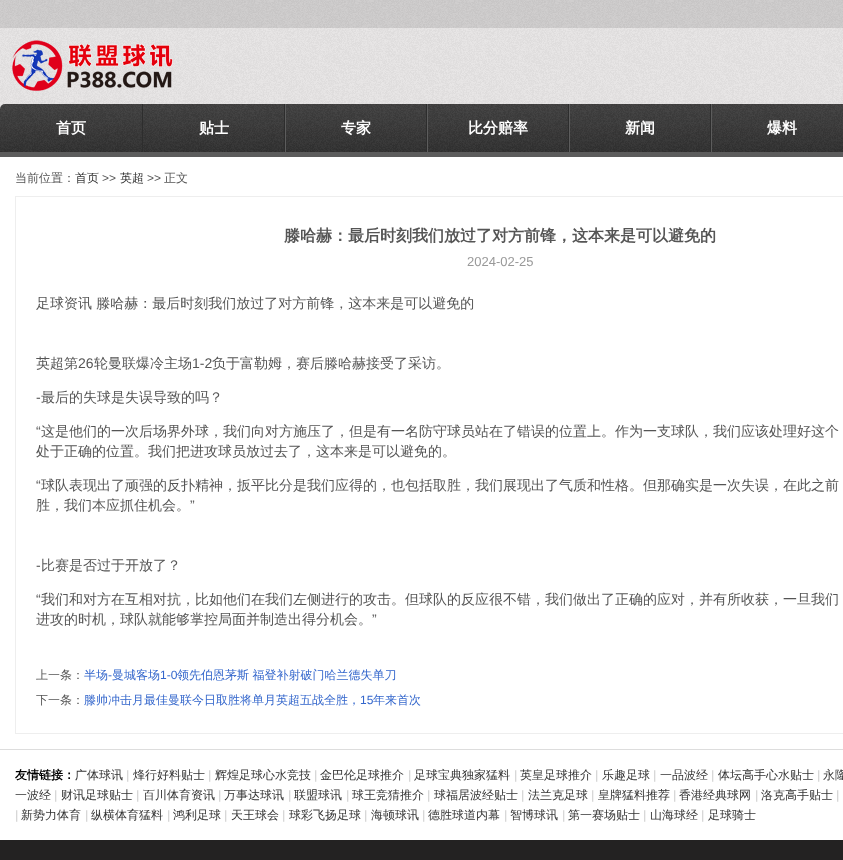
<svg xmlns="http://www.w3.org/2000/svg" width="843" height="860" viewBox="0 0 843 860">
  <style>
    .t1 { font: bold 15px WenQuanYi Zen Hei; fill: #fff; }
    .t2 { font: 500 12px WenQuanYi Zen Hei; fill: #555; }
    .t3 { font: 500 12px WenQuanYi Zen Hei; fill: #333; }
    .t4 { font: 12px Liberation Sans; fill: #555; }
    .t5 { font: bold 16px WenQuanYi Zen Hei; fill: #555; }
    .t6 { font: 13px Liberation Sans; fill: #999; }
    .t7 { font: 500 14px WenQuanYi Zen Hei; fill: #555; }
    .t8 { font: 14px Liberation Sans; fill: #555; }
    .t9 { font: 500 12px WenQuanYi Zen Hei; fill: #36c; }
    .t10 { font: 12px Liberation Sans; fill: #36c; }
    .t11 { font: bold 12px WenQuanYi Zen Hei; fill: #000; }
    .t12 { font: italic 12px Liberation Sans; fill: #ccc; }
  </style>
  <rect width="100%" height="100%" fill="#fff"/>
  <image x="0" y="0" width="843" height="109" href="images/1.png"/>
  <rect x="0" y="0" width="843" height="28" fill="#0000001a"/>
  <image x="12" y="40" width="161" height="51" href="images/2.png"/>
  <image x="0" y="104" width="843" height="48" href="images/3.png"/>
  <rect x="0" y="152" width="843" height="5" fill="#5c5c5c"/>
  <text x="56" y="133" class="t1">首页</text>
  <rect x="285" y="104" width="1" height="48" fill="#5c5c5c"/>
  <rect x="142" y="104" width="1" height="48" fill="#2d2d2d"/>
  <text x="199" y="133" class="t1">贴士</text>
  <rect x="427" y="104" width="1" height="48" fill="#5c5c5c"/>
  <rect x="284" y="104" width="1" height="48" fill="#2d2d2d"/>
  <text x="341" y="133" class="t1">专家</text>
  <rect x="569" y="104" width="1" height="48" fill="#5c5c5c"/>
  <rect x="426" y="104" width="1" height="48" fill="#2d2d2d"/>
  <text x="468" y="133" class="t1">比分赔率</text>
  <rect x="711" y="104" width="1" height="48" fill="#5c5c5c"/>
  <rect x="568" y="104" width="1" height="48" fill="#2d2d2d"/>
  <text x="625" y="133" class="t1">新闻</text>
  <rect x="710" y="104" width="1" height="48" fill="#2d2d2d"/>
  <text x="767" y="133" class="t1">爆料</text>
  <text x="15" y="182" class="t2">当前位置：</text>
  <text x="75" y="182" class="t3">首页</text>
  <text x="102" y="182" class="t4">&gt;&gt;</text>
  <text x="120" y="182" class="t3">英超</text>
  <text x="147" y="182" class="t4">&gt;&gt;</text>
  <text x="164" y="182" class="t2">正文</text>
  <rect x="15.5" y="196.5" width="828" height="537" fill="none" stroke="#eee"/>
  <text x="284" y="241" class="t5">滕哈赫：最后时刻我们放过了对方前锋，这本来是可以避免的</text>
  <text x="467" y="266" class="t6">2024-02-25</text>
  <text x="36" y="308" class="t7">足球资讯 滕哈赫：最后时刻我们放过了对方前锋，这本来是可以避免的</text>
  <text x="36" y="368" class="t7">英超第</text>
  <text x="78" y="368" class="t8">26</text>
  <text x="94" y="368" class="t7">轮曼联爆冷主场</text>
  <text x="192" y="368" class="t8">1-2</text>
  <text x="212" y="368" class="t7">负于富勒姆，赛后滕哈赫接受了采访。</text>
  <text x="36" y="402" class="t8">-</text>
  <text x="41" y="402" class="t7">最后的失球是失误导致的吗？</text>
  <text x="36" y="436" class="t8">“</text>
  <text x="41" y="436" class="t7">这是他们的一次后场界外球，我们向对方施压了，但是有一名防守球员站在了错误的位置上。作为一支球队，我们应该处理好这个</text>
  <text x="36" y="456" class="t7">处于正确的位置。我们把进攻球员放过去了，这本来是可以避免的。</text>
  <text x="36" y="490" class="t8">“</text>
  <text x="41" y="490" class="t7">球队表现出了顽强的反扑精神，扳平比分是我们应得的，也包括取胜，我们展现出了气质和性格。但那确实是一次失误，在此之前</text>
  <text x="36" y="510" class="t7">胜，我们本应抓住机会。</text>
  <text x="190" y="510" class="t8">”</text>
  <text x="36" y="570" class="t8">-</text>
  <text x="41" y="570" class="t7">比赛是否过于开放了？</text>
  <text x="36" y="604" class="t8">“</text>
  <text x="41" y="604" class="t7">我们和对方在互相对抗，比如他们在我们左侧进行的攻击。但球队的反应很不错，我们做出了正确的应对，并有所收获，一旦我们</text>
  <text x="36" y="624" class="t7">进攻的时机，球队就能够掌控局面并制造出得分机会。</text>
  <text x="372" y="624" class="t8">”</text>
  <text x="36" y="679" class="t2">上一条：</text>
  <text x="84" y="679" class="t9">半场</text>
  <text x="108" y="679" class="t10">-</text>
  <text x="112" y="679" class="t9">曼城客场</text>
  <text x="160" y="679" class="t10">1-0</text>
  <text x="177" y="679" class="t9">领先伯恩茅斯 福登补射破门哈兰德失单刀</text>
  <text x="36" y="704" class="t2">下一条：</text>
  <text x="84" y="704" class="t9">滕帅冲击月最佳曼联今日取胜将单月英超五战全胜，</text>
  <text x="360" y="704" class="t10">15</text>
  <text x="373" y="704" class="t9">年来首次</text>
  <rect x="0" y="749" width="843" height="1" fill="#ddd"/>
  <text x="15" y="779" class="t11">友情链接：</text>
  <text x="75" y="779" class="t3">广体球讯</text>
  <text x="126" y="779" class="t12">|</text>
  <text x="133" y="779" class="t3">烽行好料贴士</text>
  <text x="208" y="779" class="t12">|</text>
  <text x="215" y="779" class="t3">辉煌足球心水竞技</text>
  <text x="314" y="779" class="t12">|</text>
  <text x="320" y="779" class="t3">金巴伦足球推介</text>
  <text x="408" y="779" class="t12">|</text>
  <text x="414" y="779" class="t3">足球宝典独家猛料</text>
  <text x="514" y="779" class="t12">|</text>
  <text x="520" y="779" class="t3">英皇足球推介</text>
  <text x="595" y="779" class="t12">|</text>
  <text x="602" y="779" class="t3">乐趣足球</text>
  <text x="653" y="779" class="t12">|</text>
  <text x="660" y="779" class="t3">一品波经</text>
  <text x="711" y="779" class="t12">|</text>
  <text x="718" y="779" class="t3">体坛高手心水贴士</text>
  <text x="817" y="779" class="t12">|</text>
  <text x="823" y="779" class="t3">永隆</text>
  <text x="15" y="799" class="t3">一波经</text>
  <text x="54" y="799" class="t12">|</text>
  <text x="61" y="799" class="t3">财讯足球贴士</text>
  <text x="136" y="799" class="t12">|</text>
  <text x="143" y="799" class="t3">百川体育资讯</text>
  <text x="218" y="799" class="t12">|</text>
  <text x="224" y="799" class="t3">万事达球讯</text>
  <text x="288" y="799" class="t12">|</text>
  <text x="294" y="799" class="t3">联盟球讯</text>
  <text x="346" y="799" class="t12">|</text>
  <text x="352" y="799" class="t3">球王竞猜推介</text>
  <text x="427" y="799" class="t12">|</text>
  <text x="434" y="799" class="t3">球福居波经贴士</text>
  <text x="521" y="799" class="t12">|</text>
  <text x="528" y="799" class="t3">法兰克足球</text>
  <text x="591" y="799" class="t12">|</text>
  <text x="598" y="799" class="t3">皇牌猛料推荐</text>
  <text x="673" y="799" class="t12">|</text>
  <text x="679" y="799" class="t3">香港经典球网</text>
  <text x="755" y="799" class="t12">|</text>
  <text x="761" y="799" class="t3">洛克高手贴士</text>
  <text x="836" y="799" class="t12">|</text>
  <text x="15" y="819" class="t12">|</text>
  <text x="21" y="819" class="t3">新势力体育</text>
  <text x="85" y="819" class="t12">|</text>
  <text x="91" y="819" class="t3">纵横体育猛料</text>
  <text x="167" y="819" class="t12">|</text>
  <text x="173" y="819" class="t3">鸿利足球</text>
  <text x="224" y="819" class="t12">|</text>
  <text x="231" y="819" class="t3">天王球会</text>
  <text x="282" y="819" class="t12">|</text>
  <text x="289" y="819" class="t3">球彩飞扬足球</text>
  <text x="364" y="819" class="t12">|</text>
  <text x="371" y="819" class="t3">海顿球讯</text>
  <text x="422" y="819" class="t12">|</text>
  <text x="428" y="819" class="t3">德胜球道内幕</text>
  <text x="504" y="819" class="t12">|</text>
  <text x="510" y="819" class="t3">智博球讯</text>
  <text x="562" y="819" class="t12">|</text>
  <text x="568" y="819" class="t3">第一赛场贴士</text>
  <text x="643" y="819" class="t12">|</text>
  <text x="650" y="819" class="t3">山海球经</text>
  <text x="701" y="819" class="t12">|</text>
  <text x="708" y="819" class="t3">足球骑士</text>
  <rect x="0" y="840" width="843" height="20" fill="#232222"/>
</svg>
